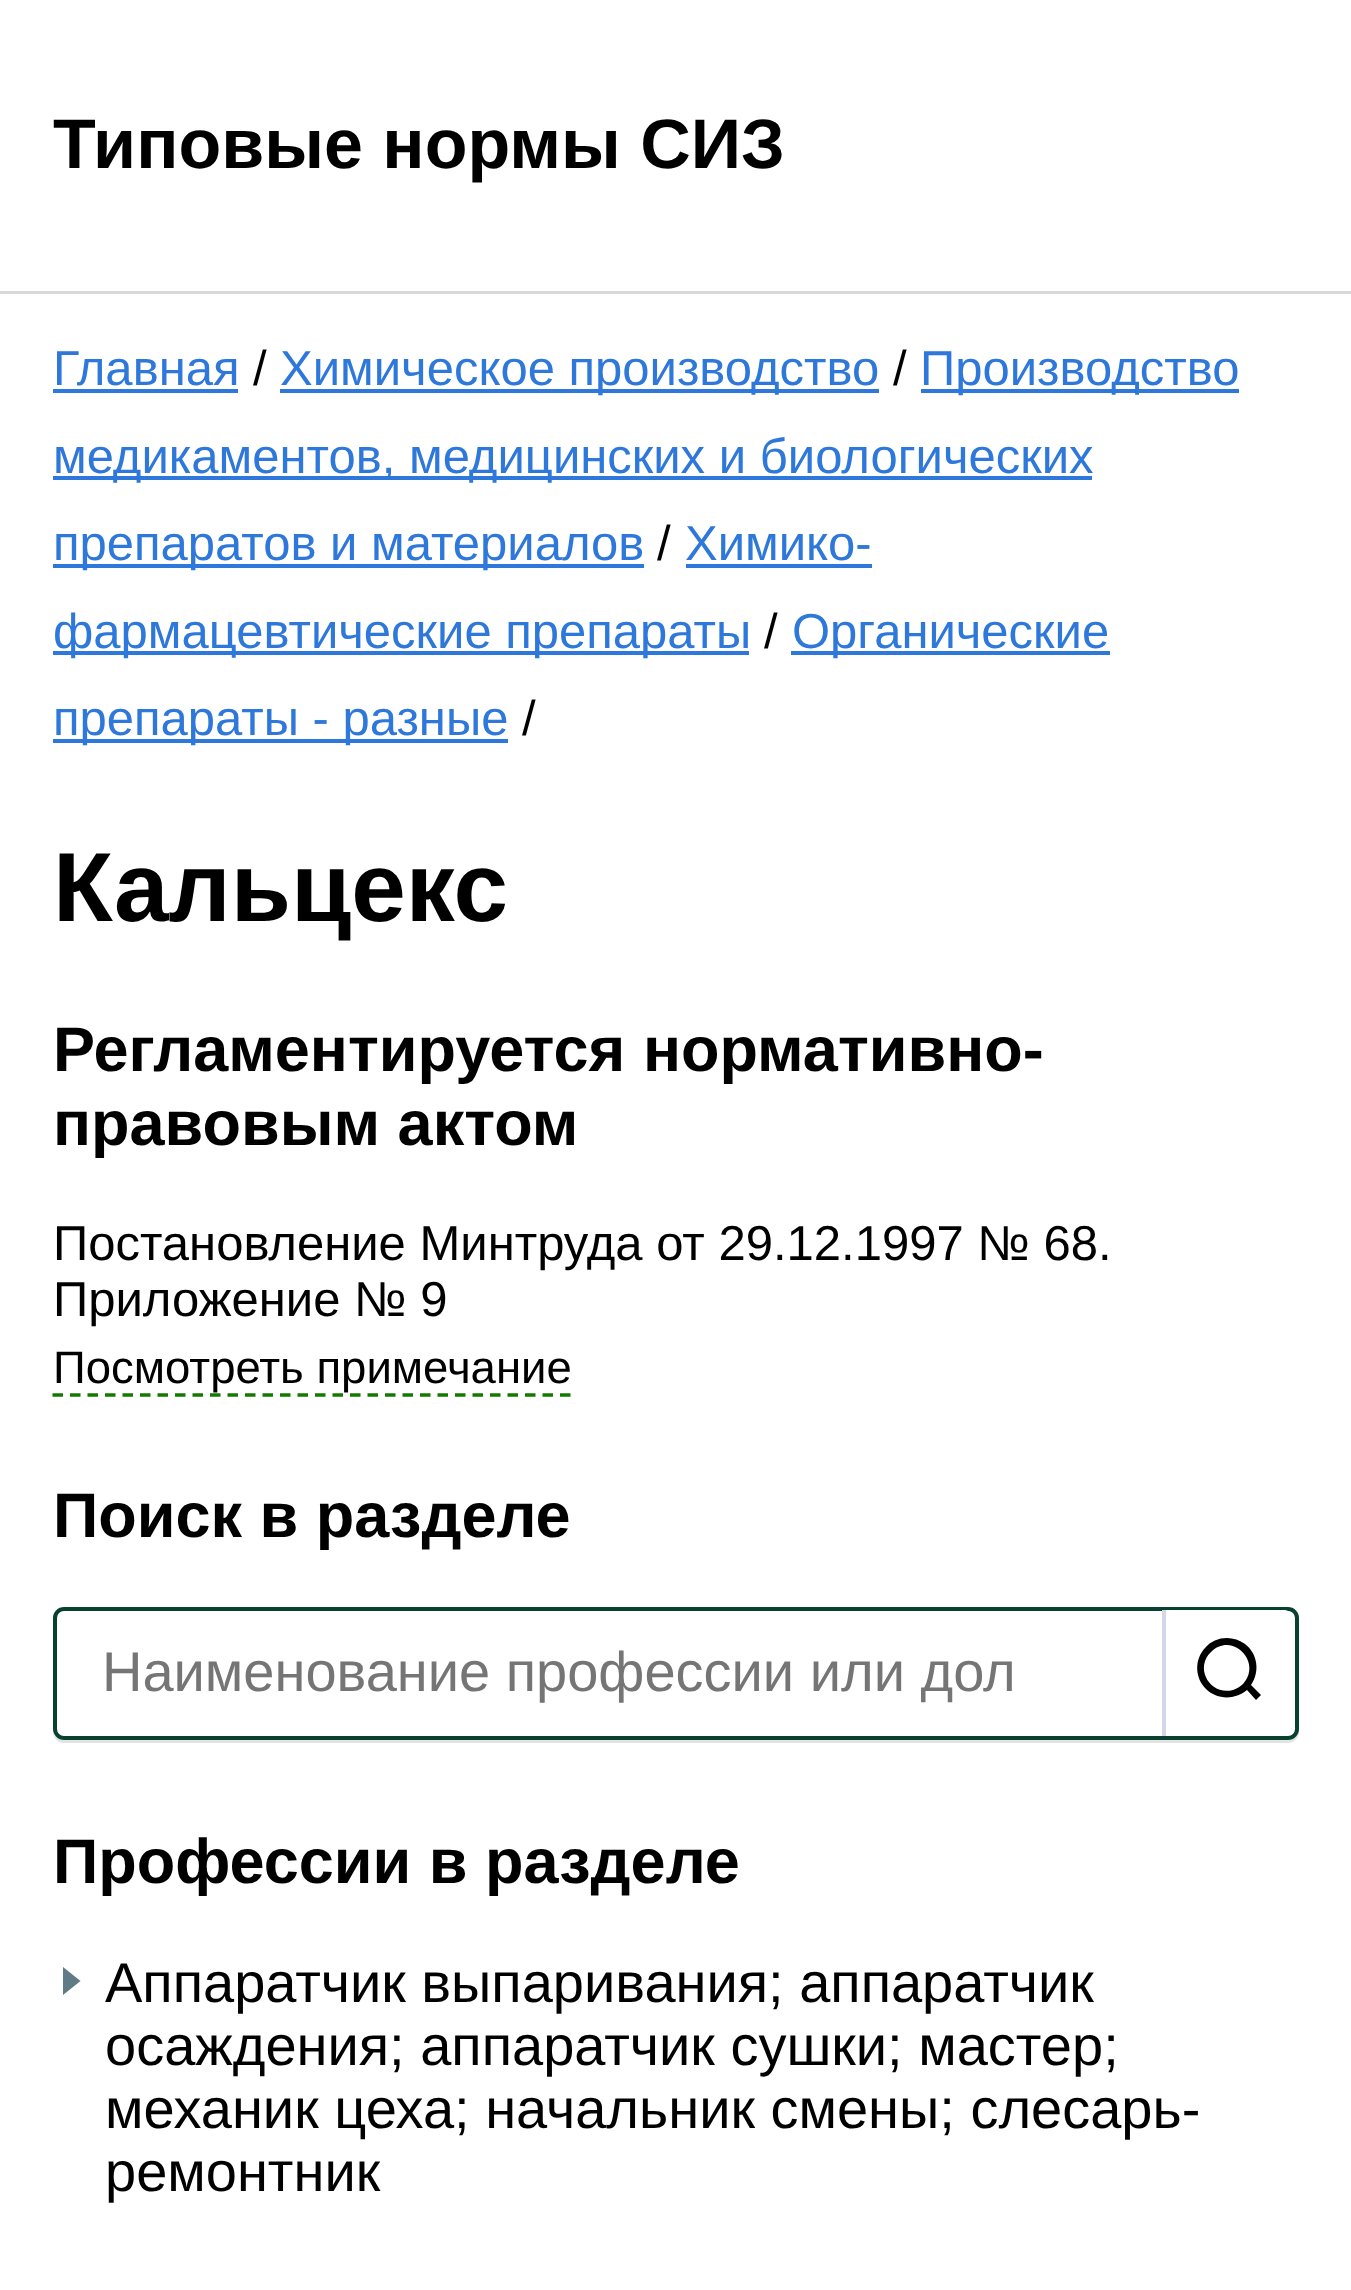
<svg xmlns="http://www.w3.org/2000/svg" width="1351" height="2290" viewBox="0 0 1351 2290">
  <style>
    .t1 { font: bold 70px Liberation Sans; fill: #000; }
    .t2 { font: 49px Liberation Sans; fill: #2d78da; }
    .t3 { font: 49px Liberation Sans; fill: #000; }
    .t4 { font: bold 98px Liberation Sans; fill: #000; }
    .t5 { font: bold 63px Liberation Sans; fill: #000; }
    .t6 { font: 45.5px Liberation Sans; fill: #000; }
    .t7 { font: 56px Liberation Sans; fill: #757575; }
    .t8 { font: 56px Liberation Sans; fill: #000; }
  </style>
  <rect width="100%" height="100%" fill="#fff"/>
  <rect x="0" y="291" width="1351" height="3" fill="#d9d9d9"/>
  <text x="53" y="168" class="t1">Типовые нормы СИЗ</text>
  <text x="53" y="385" class="t2">Главная</text>
  <rect x="53" y="389" width="185" height="4" fill="#2d78da"/>
  <text x="253" y="385" class="t3">/</text>
  <rect x="280" y="389" width="599" height="4" fill="#2d78da"/>
  <text x="280" y="385" class="t2">Химическое производство</text>
  <text x="893" y="385" class="t3">/</text>
  <rect x="921" y="389" width="318" height="4" fill="#2d78da"/>
  <text x="920" y="385" class="t2">Производство</text>
  <rect x="53" y="476" width="1039" height="4" fill="#2d78da"/>
  <text x="53" y="473" class="t2">медикаментов, медицинских и биологических</text>
  <rect x="53" y="564" width="591" height="4" fill="#2d78da"/>
  <text x="53" y="560" class="t2">препаратов и материалов</text>
  <text x="657" y="560" class="t3">/</text>
  <text x="685" y="560" class="t2">Химико-</text>
  <rect x="686" y="564" width="186" height="4" fill="#2d78da"/>
  <rect x="53" y="651" width="696" height="4" fill="#2d78da"/>
  <text x="53" y="648" class="t2">фармацевтические препараты</text>
  <text x="764" y="648" class="t3">/</text>
  <rect x="791" y="651" width="319" height="4" fill="#2d78da"/>
  <text x="792" y="648" class="t2">Органические</text>
  <rect x="53" y="739" width="455" height="4" fill="#2d78da"/>
  <text x="53" y="735" class="t2">препараты - разные</text>
  <text x="522" y="735" class="t3">/</text>
  <text x="53" y="921" class="t4">Кальцекс</text>
  <text x="53" y="1071" class="t5">Регламентируется нормативно-</text>
  <text x="53" y="1145" class="t5">правовым актом</text>
  <text x="53" y="1260" class="t3">Постановление Минтруда от 29.12.1997 № 68.</text>
  <text x="53" y="1316" class="t3">Приложение № 9</text>
  <text x="53" y="1383" class="t6">Посмотреть примечание</text>
  <path d="M52.5 1395H570.5" fill="none" stroke="#147900" stroke-width="3.5" stroke-dasharray="10.5 7"/>
  <text x="53" y="1537" class="t5">Поиск в разделе</text>
  <path d="M53 1732C53 1738 58 1743 64 1743H1288C1294 1743 1299 1738 1299 1732V1621L1298 1618V1729C1298 1735 1294 1740 1288 1740H63C58 1740 54 1736 53 1732Z" fill="#e3e3e3"/>
  <rect x="55" y="1609" width="1242" height="129" rx="9" fill="#fff" stroke="#09412f" stroke-width="4"/>
  <text x="102" y="1691" class="t7">Наименование профессии или дол</text>
  <path d="M1162 1610H1284C1290 1610 1295 1615 1295 1621V1725C1295 1731 1290 1736 1284 1736H1162Z" fill="#fff"/>
  <path d="M1251 1685L1261 1695L1256 1700L1247 1690C1235 1700 1217 1700 1206 1689C1195 1678 1194 1660 1205 1648C1215 1636 1233 1635 1245 1644C1258 1654 1260 1672 1251 1685ZM1211 1652C1194 1668 1210 1696 1233 1690C1236 1689 1240 1687 1243 1684C1263 1662 1232 1631 1211 1652Z" fill="#000"/>
  <rect x="1162" y="1610" width="4" height="126" fill="#d6d6eb"/>
  <text x="53" y="1883" class="t5">Профессии в разделе</text>
  <path d="M63 1995V1967L80.5 1981Z" fill="#5f7b85"/>
  <text x="105" y="2002" class="t8">Аппаратчик выпаривания; аппаратчик</text>
  <text x="105" y="2065" class="t8">осаждения; аппаратчик сушки; мастер;</text>
  <text x="105" y="2128" class="t8">механик цеха; начальник смены; слесарь-</text>
  <text x="105" y="2191" class="t8">ремонтник</text>
</svg>
